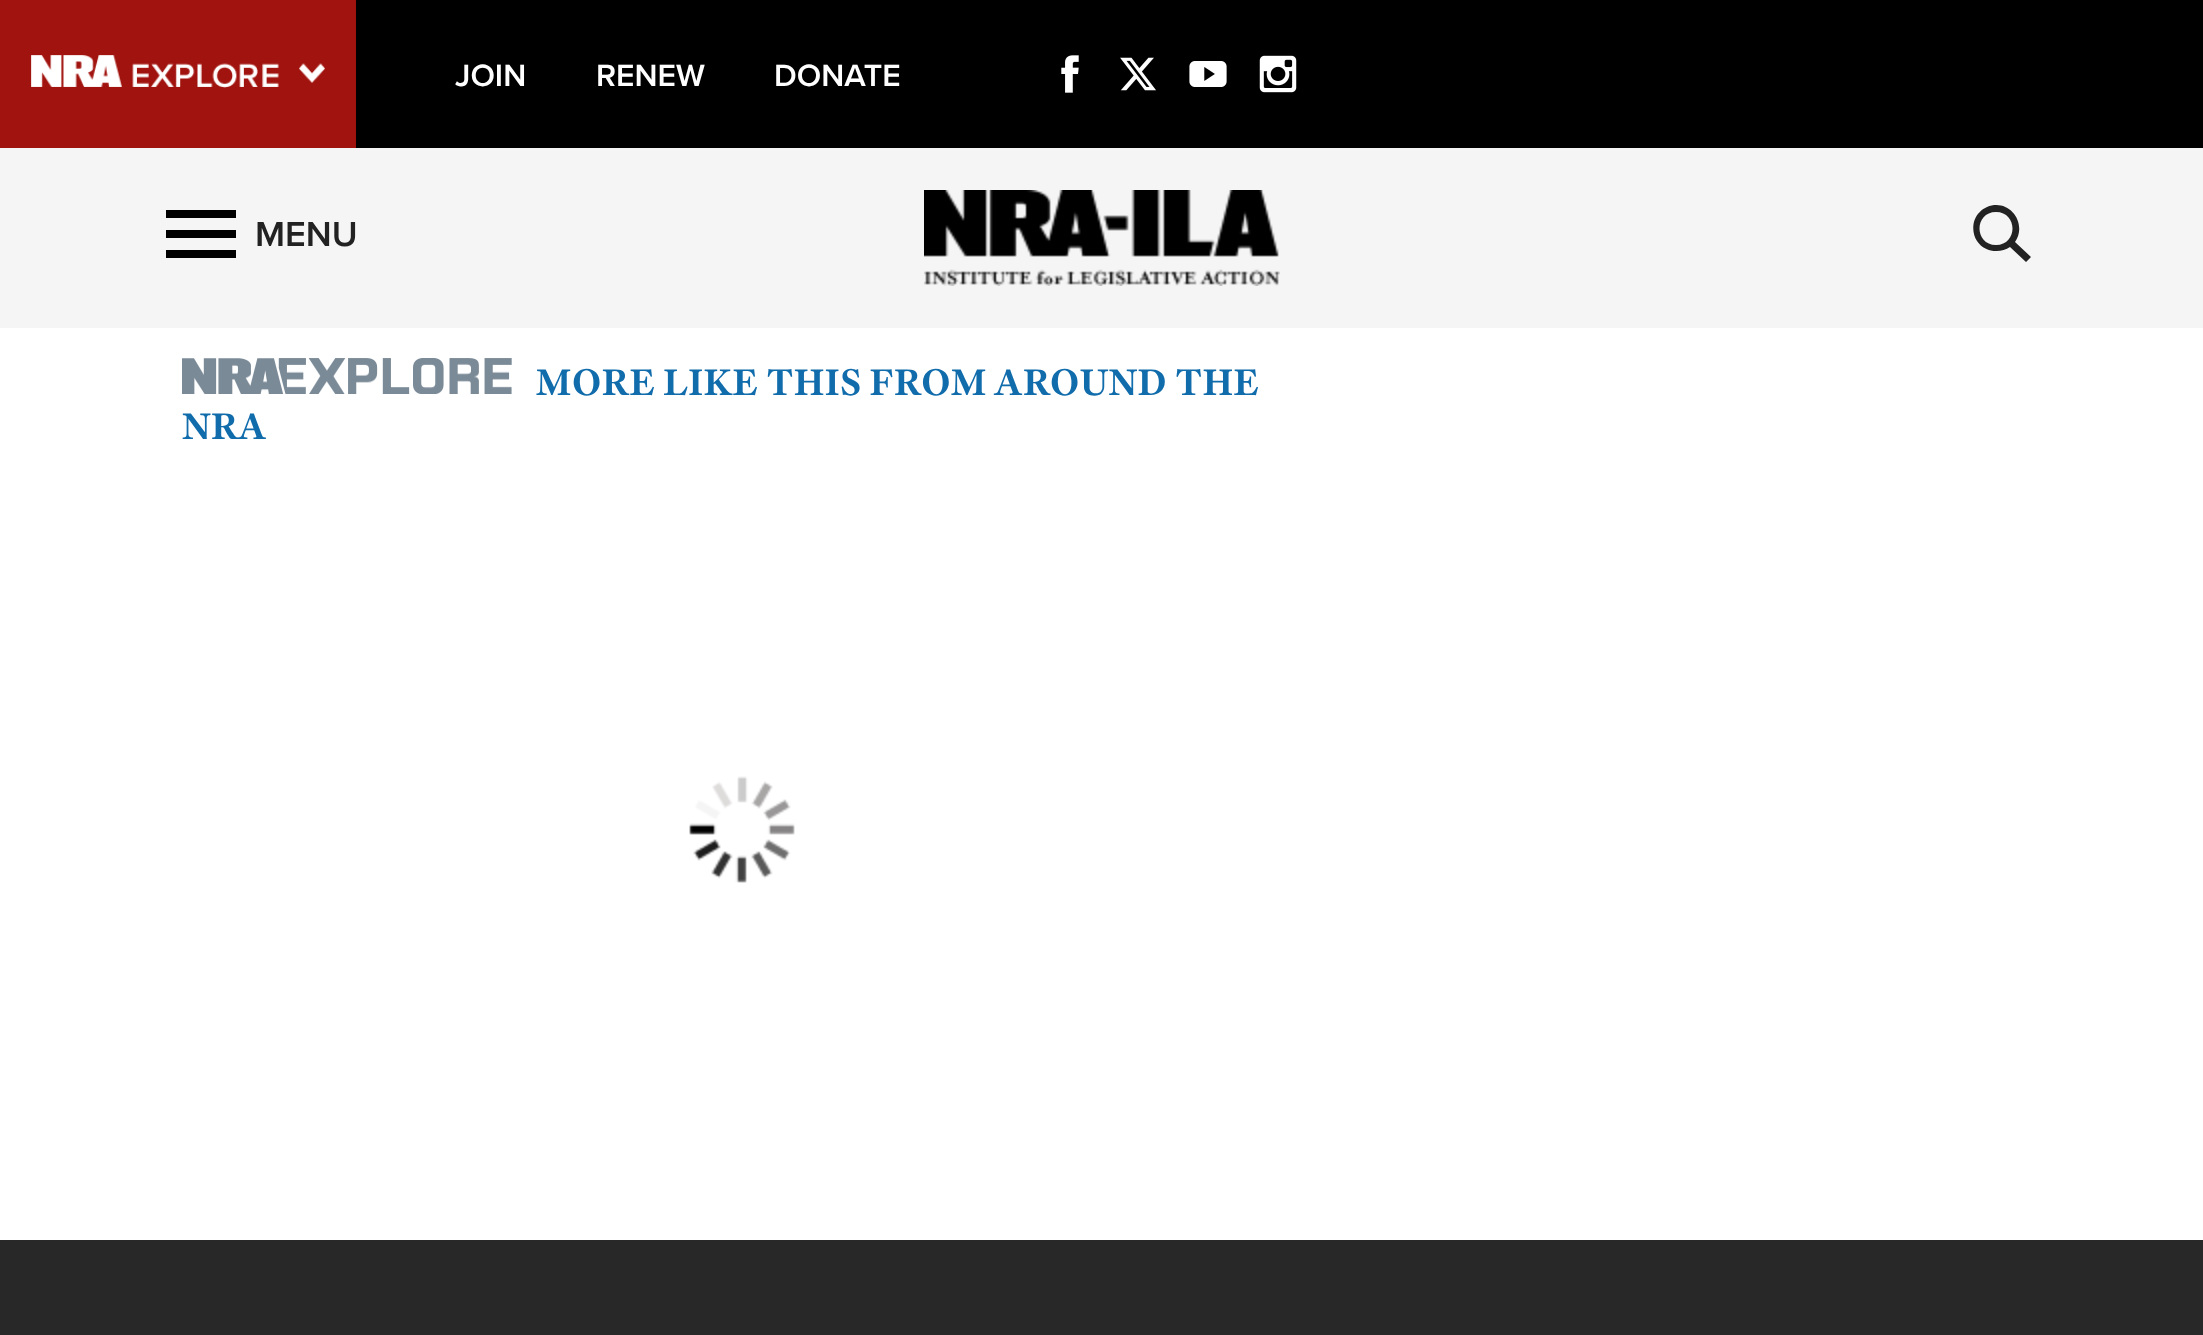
<svg xmlns="http://www.w3.org/2000/svg" width="2203" height="1335" viewBox="0 0 2203 1335">
  <style>
    .t1 { font: 600 32px Proxima Nova; fill: #fff; }
    .t2 { font: 600 36px Proxima Nova; fill: #222; }
    .t3 { font: bold 40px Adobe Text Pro; fill: #116cac; }
  </style>
  <rect width="100%" height="100%" fill="#fff"/>
  <rect x="356" y="0" width="1847" height="148" fill="#000"/>
  <rect x="0" y="0" width="356" height="148" fill="#a1130e"/>
  <image x="31" y="55" width="294" height="33" href="images/1.png"/>
  <text x="455" y="86" class="t1">JOIN</text>
  <text x="596" y="86" class="t1">RENEW</text>
  <text x="774" y="86" class="t1">DONATE</text>
  <image x="1061" y="55" width="18" height="38" href="images/2.png"/>
  <image x="1120" y="57" width="36" height="34" href="images/3.png"/>
  <image x="1189" y="61" width="38" height="26" href="images/4.png"/>
  <image x="1259" y="55" width="38" height="38" href="images/5.png"/>
  <rect x="0" y="148" width="2203" height="180" fill="#f5f5f5"/>
  <rect x="166" y="230" width="70" height="8" fill="#000"/>
  <rect x="166" y="210" width="70" height="8" fill="#000"/>
  <rect x="166" y="250" width="70" height="8" fill="#000"/>
  <text x="255" y="246" class="t2">MENU</text>
  <image x="924" y="190" width="356" height="96" href="images/6.png"/>
  <path d="M2015 242C2028 223 2009 198 1987 207C1982 209 1977 214 1975 219C1972 226 1973 235 1977 241C1984 252 2000 254 2010 247L2026 262L2031 257ZM1996 245C1974 245 1974 212 1996 212C2018 212 2018 245 1996 245Z" fill="#222"/>
  <image x="182" y="358" width="330" height="36" href="images/7.png"/>
  <text x="536" y="395" class="t3">MORE LIKE THIS FROM AROUND THE</text>
  <text x="182" y="439" class="t3">NRA</text>
  <image x="689" y="776" width="106" height="107" href="images/8.png"/>
  <rect x="0" y="1240" width="2203" height="95" fill="#282828"/>
</svg>
